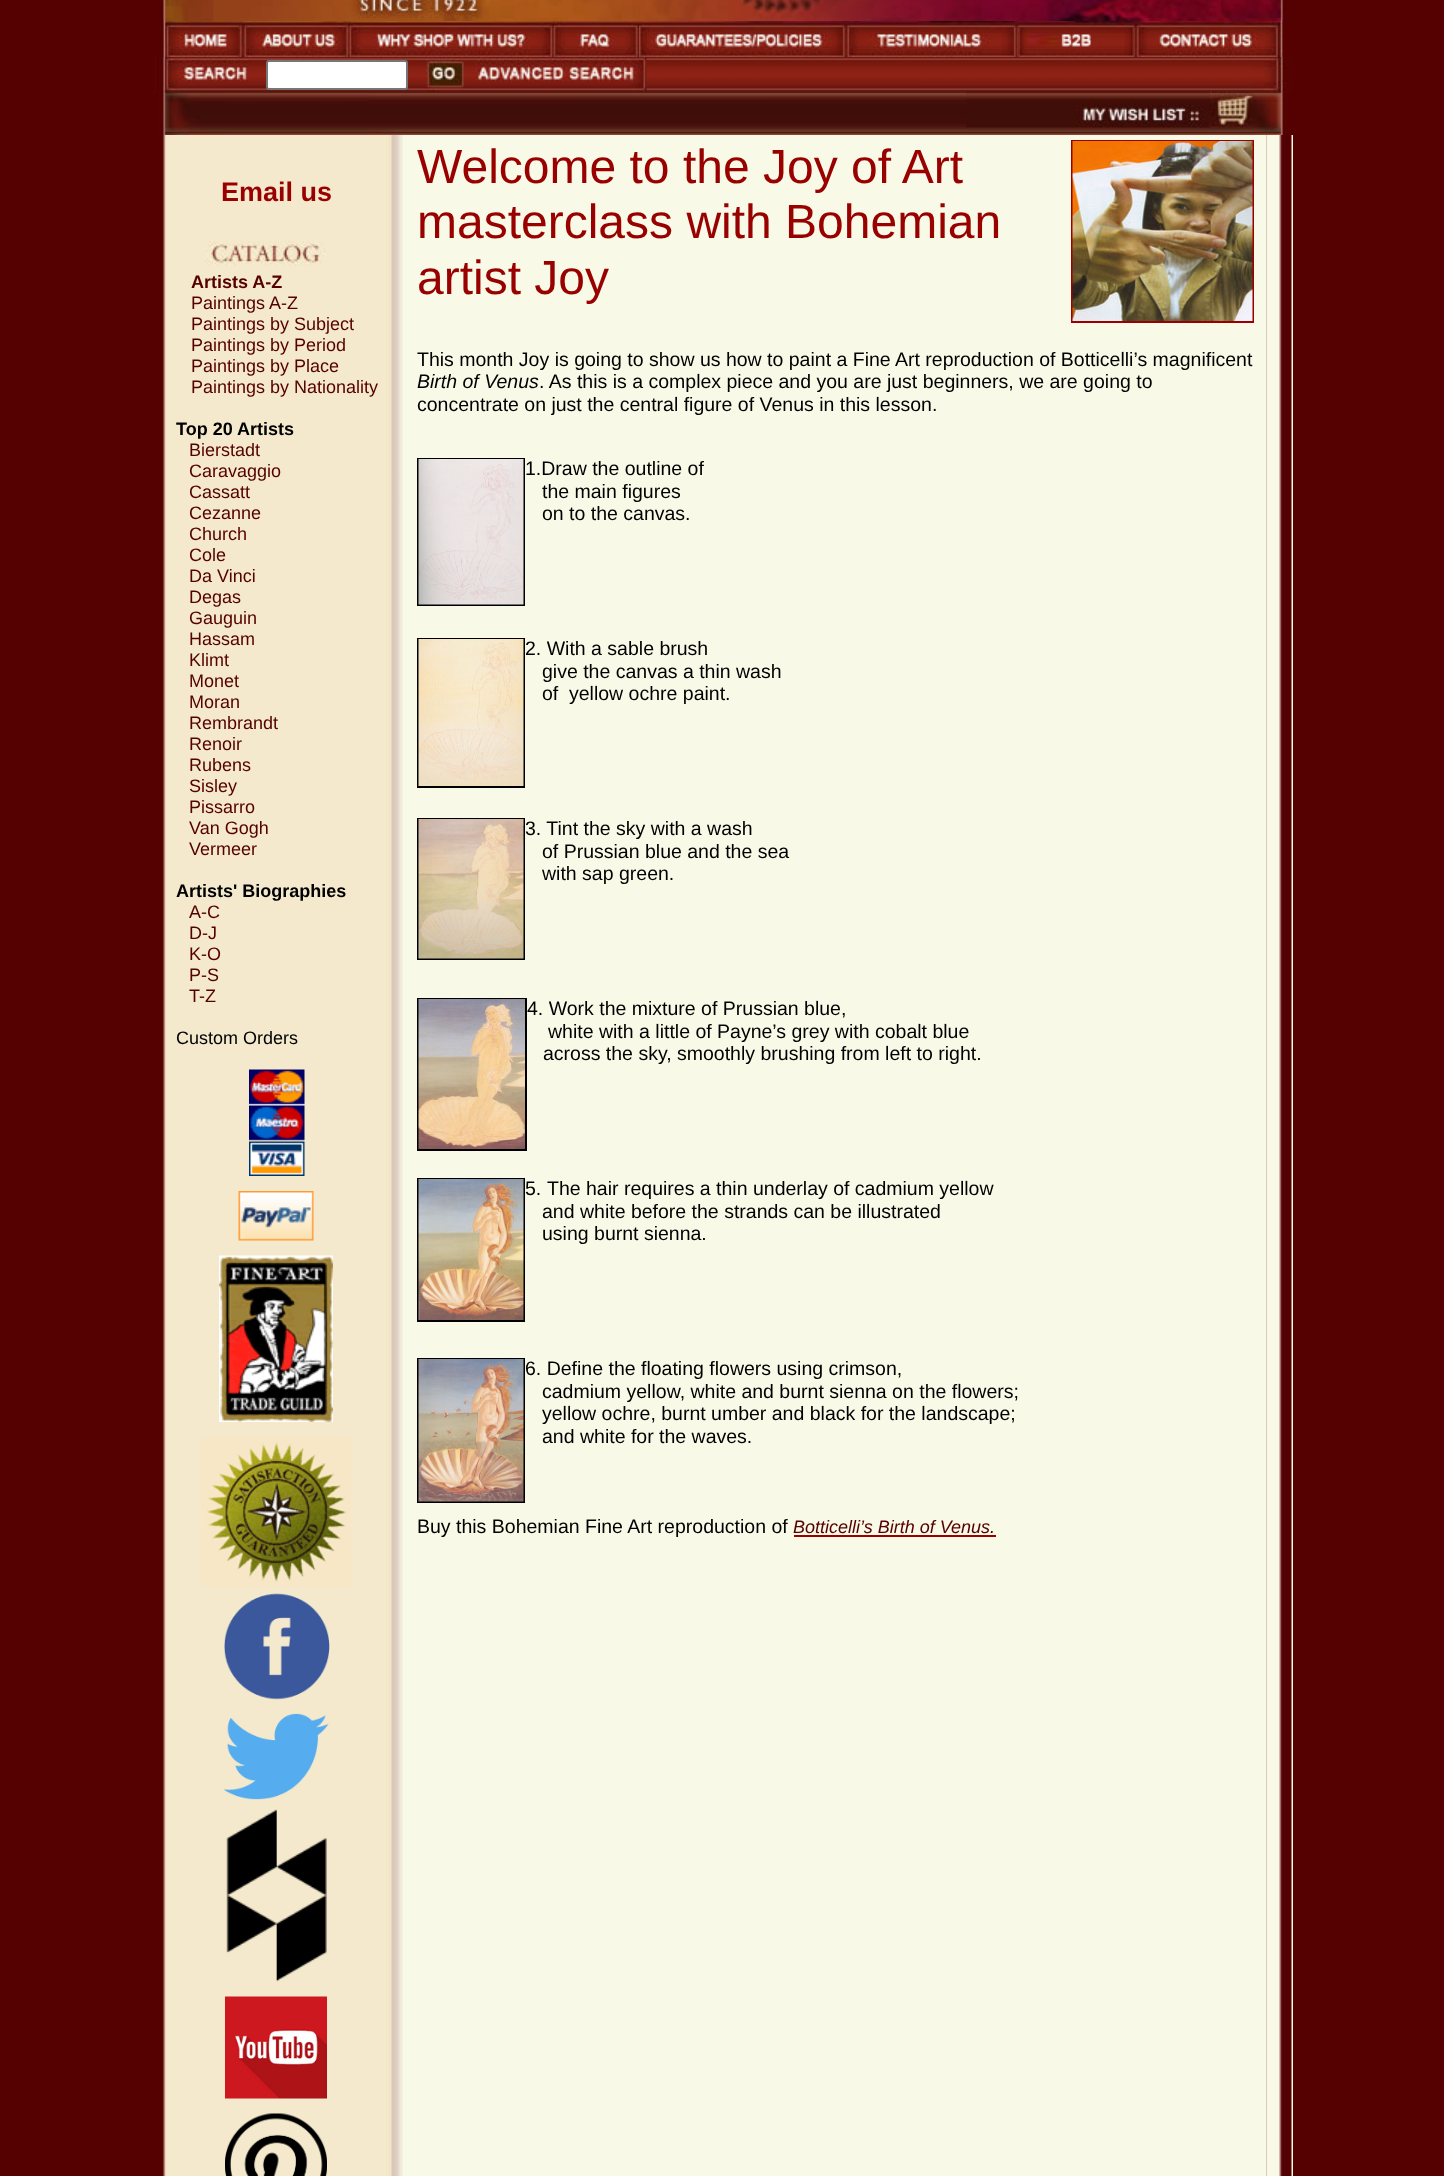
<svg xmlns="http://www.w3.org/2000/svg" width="1444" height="2176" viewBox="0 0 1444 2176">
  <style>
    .t1 { font: bold 27px Liberation Sans; fill: #900; }
    .t2 { font: bold 18px Liberation Sans; fill: #560101; }
    .t3 { font: 18px Liberation Sans; fill: #560101; }
    .t4 { font: bold 18px Liberation Sans; fill: #000; }
    .t5 { font: 18px Liberation Sans; fill: #000; }
    .t6 { font: 48px Liberation Sans; fill: #900; }
    .t7 { font: 19.5px Liberation Sans; fill: #000; }
    .t8 { font: italic 19.5px Liberation Sans; fill: #000; }
    .t9 { font: italic 18px Liberation Sans; fill: #560101; }
  </style>
  <rect width="100%" height="100%" fill="#560101"/>
  <image x="161" y="0" width="1124" height="21" href="images/1.png"/>
  <image x="161" y="21" width="82" height="36" href="images/2.png"/>
  <image x="243" y="21" width="107" height="36" href="images/3.png"/>
  <image x="349" y="21" width="205" height="36" href="images/4.png"/>
  <image x="553" y="21" width="86" height="36" href="images/5.png"/>
  <image x="639" y="21" width="207" height="36" href="images/6.png"/>
  <image x="846" y="21" width="171" height="36" href="images/7.png"/>
  <image x="1017" y="21" width="119" height="36" href="images/8.png"/>
  <image x="1135" y="21" width="148" height="36" href="images/9.png"/>
  <image x="153" y="57" width="1140" height="35" href="images/10.png"/>
  <image x="157" y="91" width="1132" height="44" href="images/15.png"/>
  <image x="153" y="57" width="95" height="35" href="images/11.png"/>
  <rect x="267" y="61" width="140" height="28" rx="2" fill="#fff" stroke="#767676" stroke-width="2"/>
  <image x="426" y="57" width="38" height="35" href="images/12.png"/>
  <image x="464" y="57" width="183" height="35" href="images/13.png"/>
  <image x="1253" y="57" width="40" height="35" href="images/14.png"/>
  <image x="966" y="91" width="243" height="40" href="images/16.png"/>
  <image x="1209" y="91" width="44" height="41" href="images/17.png"/>
  <image x="161" y="135" width="8" height="2041" href="images/18.png"/>
  <rect x="169" y="135" width="214" height="2041" fill="#f4e9cd"/>
  <text x="221" y="201" class="t1">Email us</text>
  <image x="205" y="241" width="121" height="25" href="images/19.png"/>
  <text x="191" y="288" class="t2">Artists A-Z</text>
  <text x="191" y="309" class="t3">Paintings A-Z</text>
  <text x="191" y="330" class="t3">Paintings by Subject</text>
  <text x="191" y="351" class="t3">Paintings by Period</text>
  <text x="191" y="372" class="t3">Paintings by Place</text>
  <text x="191" y="393" class="t3">Paintings by Nationality</text>
  <text x="176" y="435" class="t4">Top 20 Artists</text>
  <text x="189" y="456" class="t3">Bierstadt</text>
  <text x="189" y="477" class="t3">Caravaggio</text>
  <text x="189" y="498" class="t3">Cassatt</text>
  <text x="189" y="519" class="t3">Cezanne</text>
  <text x="189" y="540" class="t3">Church</text>
  <text x="189" y="561" class="t3">Cole</text>
  <text x="189" y="582" class="t3">Da Vinci</text>
  <text x="189" y="603" class="t3">Degas</text>
  <text x="189" y="624" class="t3">Gauguin</text>
  <text x="189" y="645" class="t3">Hassam</text>
  <text x="189" y="666" class="t3">Klimt</text>
  <text x="189" y="687" class="t3">Monet</text>
  <text x="189" y="708" class="t3">Moran</text>
  <text x="189" y="729" class="t3">Rembrandt</text>
  <text x="189" y="750" class="t3">Renoir</text>
  <text x="189" y="771" class="t3">Rubens</text>
  <text x="189" y="792" class="t3">Sisley</text>
  <text x="189" y="813" class="t3">Pissarro</text>
  <text x="189" y="834" class="t3">Van Gogh</text>
  <text x="189" y="855" class="t3">Vermeer</text>
  <text x="176" y="897" class="t4">Artists' Biographies</text>
  <text x="189" y="918" class="t3">A-C</text>
  <text x="189" y="939" class="t3">D-J</text>
  <text x="189" y="960" class="t3">K-O</text>
  <text x="189" y="981" class="t3">P-S</text>
  <text x="189" y="1002" class="t3">T-Z</text>
  <text x="176" y="1044" class="t5">Custom Orders</text>
  <image x="249" y="1069" width="56" height="107" href="images/20.png"/>
  <image x="238" y="1191" width="76" height="50" href="images/21.png"/>
  <image x="219" y="1255" width="114" height="167" href="images/22.png"/>
  <image x="201" y="1437" width="150" height="150" href="images/23.png"/>
  <image x="224" y="1593" width="106" height="107" href="images/24.png"/>
  <image x="223" y="1713" width="106" height="87" href="images/25.png"/>
  <image x="226" y="1809" width="101" height="173" href="images/26.png"/>
  <image x="225" y="1996" width="102" height="103" href="images/27.png"/>
  <image x="225" y="2113" width="102" height="63" href="images/28.png"/>
  <image x="383" y="135" width="20" height="2041" href="images/29.png"/>
  <rect x="403" y="135" width="863" height="2041" fill="#f8f9e7"/>
  <text x="417" y="183" class="t6">Welcome to the Joy of Art</text>
  <rect x="1072" y="141" width="181" height="181" fill="none" stroke="#900" stroke-width="2"/>
  <image x="1072" y="141" width="181" height="180" href="images/30.png"/>
  <text x="417" y="238" class="t6">masterclass with Bohemian</text>
  <text x="417" y="294" class="t6">artist Joy</text>
  <text x="417" y="366" class="t7">This month Joy is going to show us how to paint a Fine Art reproduction of Botticelli’s magnificent</text>
  <text x="417" y="388" class="t8">Birth of Venus</text>
  <text x="539" y="388" class="t7">. As this is a complex piece and you are just beginners, we are going to</text>
  <text x="417" y="411" class="t7">concentrate on just the central figure of Venus in this lesson.</text>
  <rect x="418" y="459" width="106" height="146" fill="none" stroke="#000" stroke-width="2"/>
  <image x="418" y="459" width="106" height="146" href="images/31.png"/>
  <text x="525" y="475" class="t7">1.Draw the outline of</text>
  <text x="542" y="498" class="t7">the main figures</text>
  <text x="542" y="520" class="t7">on to the canvas.</text>
  <rect x="418" y="639" width="106" height="148" fill="none" stroke="#000" stroke-width="2"/>
  <image x="418" y="639" width="106" height="147" href="images/32.png"/>
  <text x="525" y="655" class="t7">2. With a sable brush</text>
  <text x="542" y="678" class="t7">give the canvas a thin wash</text>
  <text x="542" y="700" class="t7">of</text>
  <text x="569" y="700" class="t7">yellow ochre paint.</text>
  <rect x="418" y="819" width="106" height="140" fill="none" stroke="#000" stroke-width="2"/>
  <image x="418" y="819" width="106" height="140" href="images/33.png"/>
  <text x="525" y="835" class="t7">3. Tint the sky with a wash</text>
  <text x="542" y="858" class="t7">of Prussian blue and the sea</text>
  <text x="542" y="880" class="t7">with sap green.</text>
  <rect x="418" y="999" width="108" height="151" fill="none" stroke="#000" stroke-width="2"/>
  <image x="418" y="999" width="107" height="150" href="images/34.png"/>
  <text x="527" y="1015" class="t7">4. Work the mixture of Prussian blue,</text>
  <text x="548" y="1038" class="t7">white with a little of Payne’s grey with cobalt blue</text>
  <text x="543" y="1060" class="t7">across the sky, smoothly brushing from left to right.</text>
  <rect x="418" y="1179" width="106" height="142" fill="none" stroke="#000" stroke-width="2"/>
  <image x="418" y="1179" width="106" height="141" href="images/35.png"/>
  <text x="525" y="1195" class="t7">5.</text>
  <text x="547" y="1195" class="t7">The hair requires a thin underlay of cadmium yellow</text>
  <text x="542" y="1218" class="t7">and white before the strands can be illustrated</text>
  <text x="542" y="1240" class="t7">using burnt sienna.</text>
  <rect x="418" y="1359" width="106" height="143" fill="none" stroke="#000" stroke-width="2"/>
  <image x="418" y="1359" width="106" height="143" href="images/36.png"/>
  <text x="525" y="1375" class="t7">6. Define the floating flowers using crimson,</text>
  <text x="542" y="1398" class="t7">cadmium yellow, white and burnt sienna on the flowers;</text>
  <text x="542" y="1420" class="t7">yellow ochre, burnt umber and black for the landscape;</text>
  <text x="542" y="1443" class="t7">and white for the waves.</text>
  <text x="417" y="1533" class="t7">Buy this Bohemian Fine Art reproduction of</text>
  <text x="793" y="1533" class="t9">Botticelli’s Birth of Venus.</text>
  <rect x="794" y="1535" width="202" height="2" fill="#900"/>
  <image x="1266" y="135" width="27" height="2041" href="images/37.png"/>
</svg>
